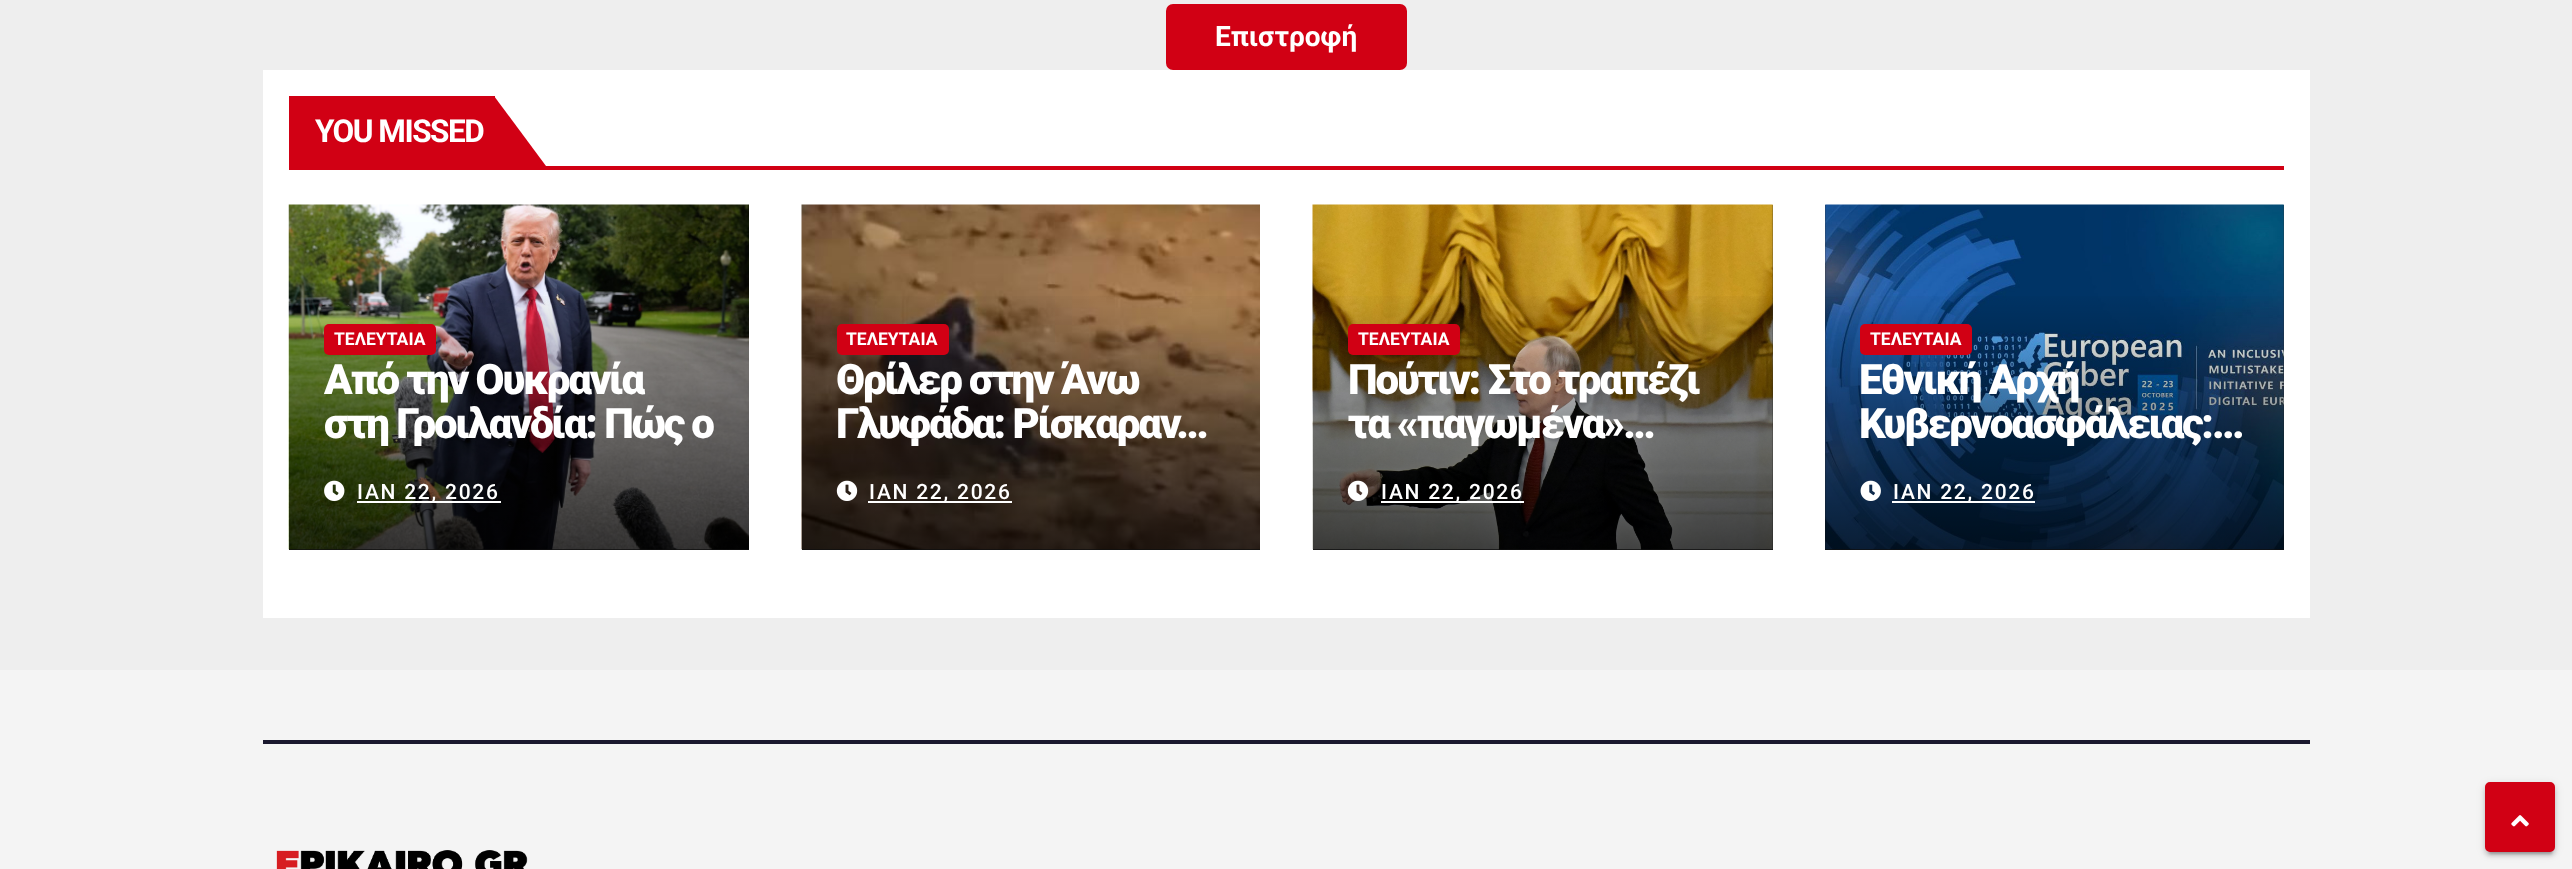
<svg xmlns="http://www.w3.org/2000/svg" width="2572" height="869" viewBox="0 0 2572 869">
  <style>
    .t1 { font: bold 28px Roboto; fill: #fff; }
    .t2 { font: bold 31.5px Roboto; letter-spacing: -1.5px; fill: #fff; }
    .t3 { font: bold 17.5px Roboto; fill: #fff; }
    .t4 { font: 900 42px Roboto; letter-spacing: -2.1px; fill: #fff; }
    .t5 { font: 500 21px Roboto; letter-spacing: 1.75px; fill: #fff; }
  </style>
  <defs>
    <linearGradient id="g1" gradientUnits="userSpaceOnUse" x1="519" y1="289" x2="519" y2="550"><stop offset="0" stop-color="#000" stop-opacity="0"/><stop offset="0.5" stop-color="#000" stop-opacity="0.4"/><stop offset="1" stop-color="#000" stop-opacity="0.7"/></linearGradient>
    <clipPath id="clip1"><rect x="324" y="359" width="390" height="87"/></clipPath>
    <linearGradient id="g2" gradientUnits="userSpaceOnUse" x1="1031" y1="289" x2="1031" y2="550"><stop offset="0" stop-color="#000" stop-opacity="0"/><stop offset="0.5" stop-color="#000" stop-opacity="0.4"/><stop offset="1" stop-color="#000" stop-opacity="0.7"/></linearGradient>
    <clipPath id="clip2"><rect x="837" y="359" width="388" height="87"/></clipPath>
    <linearGradient id="g3" gradientUnits="userSpaceOnUse" x1="1543" y1="289" x2="1543" y2="550"><stop offset="0" stop-color="#000" stop-opacity="0"/><stop offset="0.5" stop-color="#000" stop-opacity="0.4"/><stop offset="1" stop-color="#000" stop-opacity="0.7"/></linearGradient>
    <clipPath id="clip3"><rect x="1348" y="359" width="390" height="87"/></clipPath>
    <linearGradient id="g4" gradientUnits="userSpaceOnUse" x1="2055" y1="289" x2="2055" y2="550"><stop offset="0" stop-color="#000" stop-opacity="0"/><stop offset="0.5" stop-color="#000" stop-opacity="0.4"/><stop offset="1" stop-color="#000" stop-opacity="0.7"/></linearGradient>
    <clipPath id="clip4"><rect x="1860" y="359" width="389" height="87"/></clipPath>
  </defs>
  <rect width="100%" height="100%" fill="#eee"/>
  <rect x="1168" y="6" width="237" height="62" rx="5" fill="#d10014" stroke="#d10014" stroke-width="4"/>
  <text x="1215" y="46" class="t1">Επιστροφή</text>
  <rect x="263" y="70" width="2047" height="548" fill="#fff"/>
  <rect x="289" y="166" width="1995" height="4" fill="#d10014"/>
  <rect x="289" y="96" width="206" height="70" fill="#d10014"/>
  <text x="315" y="142" class="t2">YOU MISSED</text>
  <path d="M494 166V96L546 166Z" fill="#d10014"/>
  <rect x="289" y="549" width="460" height="1" fill="#333"/>
  <image x="288" y="204" width="461" height="346" href="images/1.png"/>
  <rect x="289" y="296" width="460" height="254" fill="url(#g1)"/>
  <rect x="324" y="324" width="112" height="31" rx="5" fill="#d10014"/>
  <text x="334" y="345" class="t3">ΤΕΛΕΥΤΑΙΑ</text>
  <text x="324" y="394" class="t4">Από την Ουκρανία</text>
  <g clip-path="url(#clip1)">
    <text x="324" y="438" class="t4">στη Γροιλανδία: Πώς ο</text>
  </g>
  <image x="324" y="480" width="21" height="21" href="images/2.png"/>
  <rect x="357" y="501" width="144" height="2" fill="#fff"/>
  <text x="357" y="499" class="t5">ΙΑΝ 22, 2026</text>
  <rect x="802" y="549" width="458" height="1" fill="#333"/>
  <image x="801" y="204" width="459" height="346" href="images/3.png"/>
  <rect x="802" y="296" width="458" height="254" fill="url(#g2)"/>
  <rect x="837" y="324" width="112" height="31" rx="5" fill="#d10014"/>
  <text x="846" y="345" class="t3">ΤΕΛΕΥΤΑΙΑ</text>
  <text x="836" y="394" class="t4">Θρίλερ στην Άνω</text>
  <g clip-path="url(#clip2)">
    <text x="836" y="438" class="t4">Γλυφάδα: Ρίσκαραν…</text>
  </g>
  <image x="836" y="480" width="22" height="21" href="images/4.png"/>
  <rect x="868" y="501" width="144" height="2" fill="#fff"/>
  <text x="869" y="499" class="t5">ΙΑΝ 22, 2026</text>
  <rect x="1313" y="205" width="460" height="345" fill="#333"/>
  <image x="1312" y="204" width="461" height="346" href="images/5.png"/>
  <rect x="1313" y="296" width="460" height="254" fill="url(#g3)"/>
  <rect x="1348" y="324" width="112" height="31" rx="5" fill="#d10014"/>
  <text x="1358" y="345" class="t3">ΤΕΛΕΥΤΑΙΑ</text>
  <text x="1348" y="394" class="t4">Πούτιν: Στο τραπέζι</text>
  <g clip-path="url(#clip3)">
    <text x="1348" y="438" class="t4">τα «παγωμένα»…</text>
  </g>
  <image x="1347" y="480" width="22" height="21" href="images/6.png"/>
  <rect x="1381" y="501" width="143" height="2" fill="#fff"/>
  <text x="1381" y="499" class="t5">ΙΑΝ 22, 2026</text>
  <rect x="1825" y="205" width="459" height="345" fill="#333"/>
  <image x="1825" y="204" width="459" height="346" href="images/7.png"/>
  <rect x="1825" y="296" width="459" height="254" fill="url(#g4)"/>
  <rect x="1860" y="324" width="112" height="31" rx="5" fill="#d10014"/>
  <text x="1870" y="345" class="t3">ΤΕΛΕΥΤΑΙΑ</text>
  <text x="1859" y="394" class="t4">Εθνική Αρχή</text>
  <g clip-path="url(#clip4)">
    <text x="1859" y="438" class="t4">Κυβερνοασφάλειας:…</text>
  </g>
  <image x="1860" y="480" width="21" height="21" href="images/8.png"/>
  <rect x="1892" y="501" width="143" height="2" fill="#fff"/>
  <text x="1893" y="499" class="t5">ΙΑΝ 22, 2026</text>
  <rect x="0" y="670" width="2572" height="199" fill="#f4f4f4"/>
  <rect x="263" y="740" width="2047" height="4" fill="#1a182e"/>
  <image x="276" y="850" width="252" height="19" href="images/9.png"/>
  <rect x="2485" y="784" width="70" height="70" rx="5" fill="#0000001f" filter="blur(4.5px)"/>
  <rect x="2489" y="791" width="63" height="63" rx="2" fill="#00000033" filter="blur(1px)"/>
  <rect x="2485" y="786" width="70" height="70" rx="5" fill="#00000024" filter="blur(2px)"/>
  <rect x="2487" y="784" width="66" height="66" rx="3" fill="#d10014" stroke="#d10014" stroke-width="4"/>
  <image x="2511" y="815" width="18" height="12" href="images/10.png"/>
</svg>
